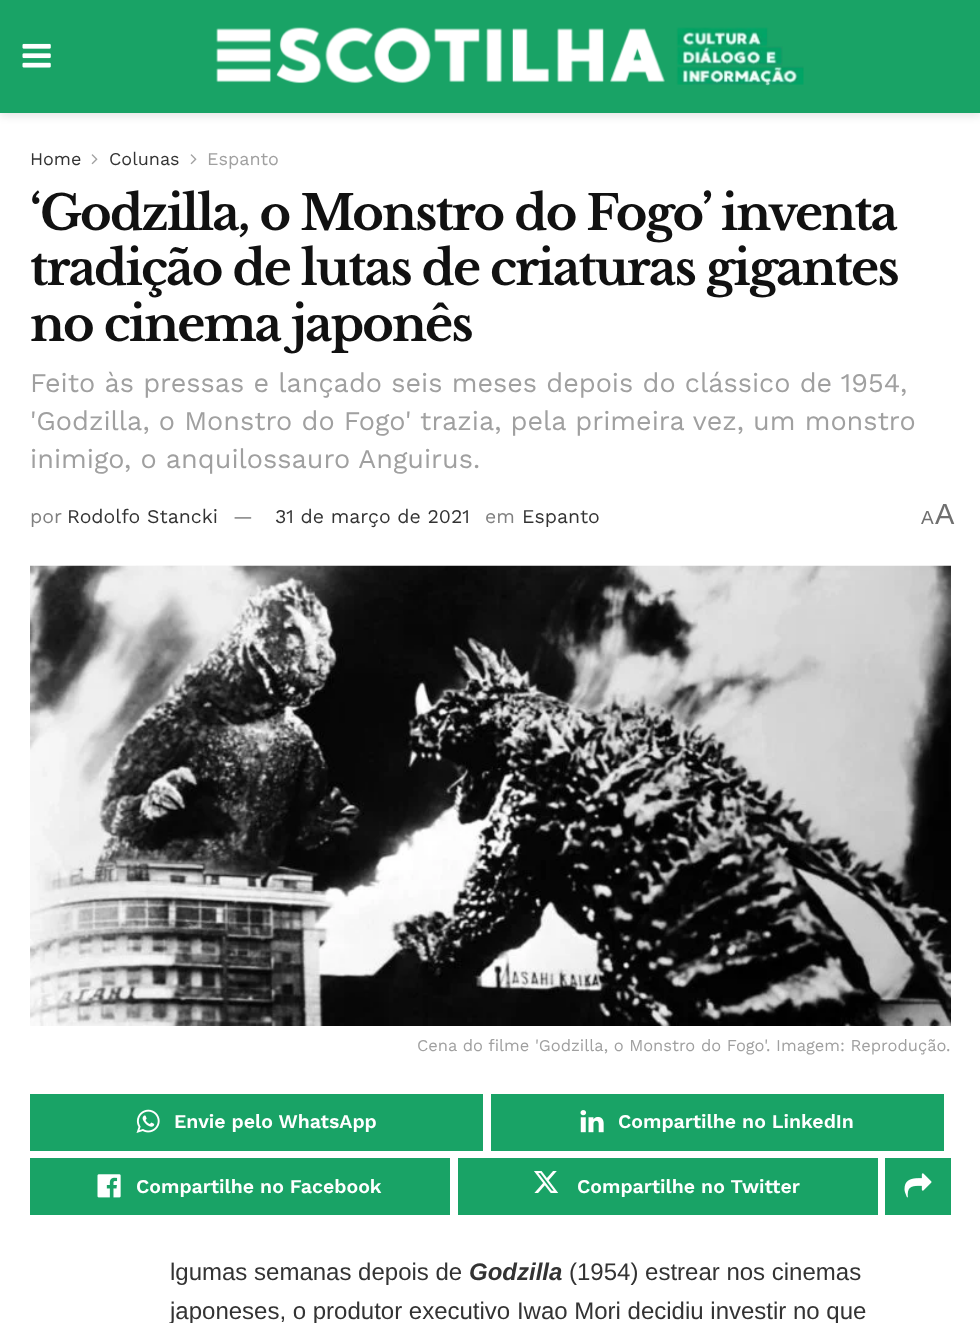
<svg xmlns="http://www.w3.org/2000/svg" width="980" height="1323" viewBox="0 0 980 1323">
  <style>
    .t1 { font: 18px Work Sans; fill: #333; }
    .t2 { font: 18px Work Sans; fill: #a0a0a0; }
    .t3 { font: bold 48px Libre Baskerville; letter-spacing: -1.9px; fill: #111; }
    .t4 { font: 27px Work Sans; fill: #a0a0a0; }
    .t5 { font: 19.5px Work Sans; fill: #808080; }
    .t6 { font: 19.5px Work Sans; fill: #333; }
    .t7 { font: 19px Liberation Sans; fill: #707070; }
    .t8 { font: 29px Liberation Sans; fill: #707070; }
    .t9 { font: 16.5px Work Sans; fill: #a0a0a0; }
    .t10 { font: 600 19.5px Work Sans; fill: #fff; }
    .t11 { font: 24px Liberation Sans; fill: #333; }
    .t12 { font: italic bold 24px Liberation Sans; fill: #333; }
  </style>
  <rect width="100%" height="100%" fill="#fff"/>
  <rect x="0" y="3" width="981" height="113" fill="#0000001a" filter="blur(4.5px)"/>
  <rect x="0" y="0" width="980" height="113" fill="#19a366"/>
  <image x="22" y="43" width="29" height="25" href="images/1.png"/>
  <image x="216" y="27" width="588" height="59" href="images/2.png"/>
  <text x="30" y="165" class="t1">Home</text>
  <image x="91" y="154" width="7" height="11" href="images/3.png"/>
  <text x="109" y="165" class="t1">Colunas</text>
  <image x="190" y="154" width="7" height="11" href="images/3.png"/>
  <text x="207" y="165" class="t2">Espanto</text>
  <text x="30" y="230" class="t3">‘Godzilla, o Monstro do Fogo’ inventa</text>
  <text x="30" y="285" class="t3">tradição de lutas de criaturas gigantes</text>
  <text x="30" y="341" class="t3">no cinema japonês</text>
  <text x="30" y="392" class="t4">Feito às pressas e lançado seis meses depois do clássico de 1954,</text>
  <text x="30" y="430" class="t4">'Godzilla, o Monstro do Fogo' trazia, pela primeira vez, um monstro</text>
  <text x="30" y="468" class="t4">inimigo, o anquilossauro Anguirus.</text>
  <text x="30" y="523" class="t5">por</text>
  <text x="67" y="523" class="t6">Rodolfo Stancki</text>
  <text x="233" y="523" class="t5">—</text>
  <text x="275" y="523" class="t6">31 de março de 2021</text>
  <text x="485" y="523" class="t5">em</text>
  <text x="522" y="523" class="t6">Espanto</text>
  <text x="921" y="524" class="t7">A</text>
  <text x="935" y="524" class="t8">A</text>
  <image x="136" y="565" width="175" height="1" href="images/5.png"/>
  <image x="30" y="565" width="921" height="461" href="images/4.png"/>
  <text x="417" y="1051" class="t9">Cena do filme 'Godzilla, o Monstro do Fogo'. Imagem: Reprodução.</text>
  <rect x="30" y="1094" width="453" height="57" fill="#19a366"/>
  <image x="136" y="1109" width="24" height="24" href="images/6.png"/>
  <text x="174" y="1128" class="t10">Envie pelo WhatsApp</text>
  <rect x="491" y="1094" width="453" height="57" fill="#19a366"/>
  <image x="580" y="1110" width="24" height="23" href="images/7.png"/>
  <text x="618" y="1128" class="t10">Compartilhe no LinkedIn</text>
  <rect x="30" y="1158" width="420" height="57" fill="#19a366"/>
  <image x="97" y="1174" width="24" height="24" href="images/8.png"/>
  <text x="136" y="1193" class="t10">Compartilhe no Facebook</text>
  <rect x="458" y="1158" width="420" height="57" fill="#19a366"/>
  <image x="534" y="1171" width="25" height="22" href="images/9.png"/>
  <text x="577" y="1193" class="t10">Compartilhe no Twitter</text>
  <rect x="885" y="1158" width="66" height="57" fill="#19a366"/>
  <image x="904" y="1173" width="28" height="25" href="images/10.png"/>
  <text x="170" y="1280" class="t11">lgumas semanas depois de</text>
  <text x="469" y="1280" class="t12">Godzilla</text>
  <text x="569" y="1280" class="t11">(1954) estrear nos cinemas</text>
  <text x="170" y="1319" class="t11">japoneses, o produtor executivo Iwao Mori decidiu investir no que</text>
</svg>
